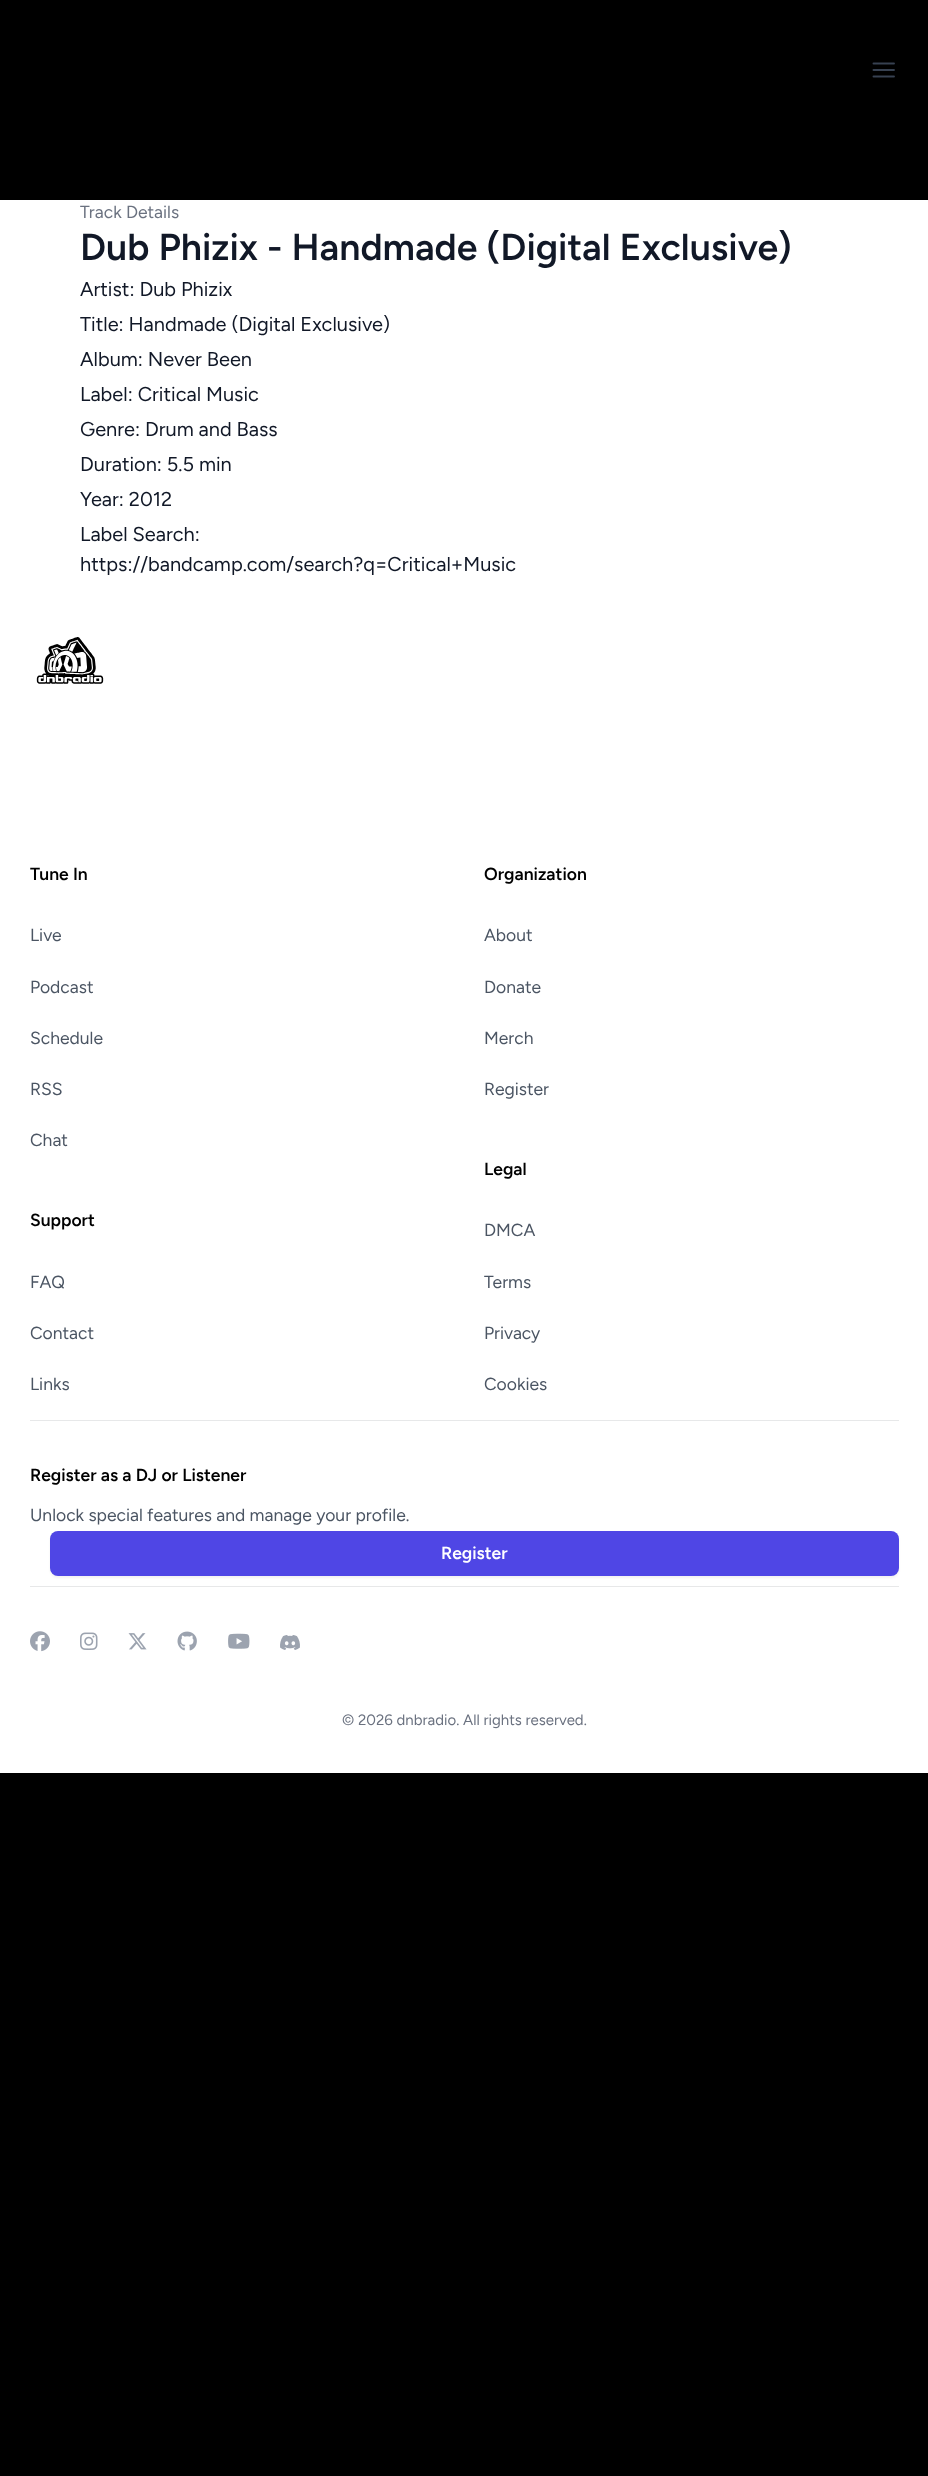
<svg xmlns="http://www.w3.org/2000/svg" width="928" height="2476" viewBox="0 0 928 2476">
  <style>
    .t1 { font: 300 17.5px Figtree; fill: #6b7280; }
    .t2 { font: 600 37.5px Figtree; fill: #111827; }
    .t3 { font: 300 20px Figtree; fill: #111827; }
    .t4 { font: 600 17.5px Figtree; fill: #000; }
    .t5 { font: 300 17.5px Figtree; fill: #4b5563; }
    .t6 { font: 600 17.5px Figtree; fill: #fff; }
    .t7 { font: 300 15px Figtree; fill: #6b7280; }
  </style>
  <rect width="100%" height="100%" fill="#000"/>
  <rect x="0" y="200" width="928" height="1573" fill="#fff"/>
  <path d="M873.5 63.5H894M873.5 70H894M873.5 76.5H894" fill="none" stroke="#374151" stroke-width="1.9" stroke-linecap="round" stroke-linejoin="round"/>
  <text x="80" y="218" class="t1">Track Details</text>
  <text x="80" y="260" class="t2">Dub Phizix - Handmade (Digital Exclusive)</text>
  <text x="80" y="296" class="t3">Artist: Dub Phizix</text>
  <text x="80" y="331" class="t3">Title: Handmade (Digital Exclusive)</text>
  <text x="80" y="366" class="t3">Album: Never Been</text>
  <text x="80" y="401" class="t3">Label: Critical Music</text>
  <text x="80" y="436" class="t3">Genre: Drum and Bass</text>
  <text x="80" y="471" class="t3">Duration: 5.5 min</text>
  <text x="80" y="506" class="t3">Year: 2012</text>
  <text x="80" y="541" class="t3">Label Search:</text>
  <text x="80" y="571" class="t3">https://bandcamp.com/search?q=Critical+Music</text>
  <image x="36" y="637" width="68" height="47" href="images/1.png"/>
  <text x="30" y="880" class="t4">Tune In</text>
  <text x="30" y="941" class="t5">Live</text>
  <text x="30" y="993" class="t5">Podcast</text>
  <text x="30" y="1044" class="t5">Schedule</text>
  <text x="30" y="1095" class="t5">RSS</text>
  <text x="30" y="1146" class="t5">Chat</text>
  <text x="30" y="1226" class="t4">Support</text>
  <text x="30" y="1288" class="t5">FAQ</text>
  <text x="30" y="1339" class="t5">Contact</text>
  <text x="30" y="1390" class="t5">Links</text>
  <text x="484" y="880" class="t4">Organization</text>
  <text x="484" y="941" class="t5">About</text>
  <text x="484" y="993" class="t5">Donate</text>
  <text x="484" y="1044" class="t5">Merch</text>
  <text x="484" y="1095" class="t5">Register</text>
  <text x="484" y="1175" class="t4">Legal</text>
  <text x="484" y="1236" class="t5">DMCA</text>
  <text x="484" y="1288" class="t5">Terms</text>
  <text x="484" y="1339" class="t5">Privacy</text>
  <text x="484" y="1390" class="t5">Cookies</text>
  <rect x="30" y="1420" width="869" height="1" fill="#e7e8e9"/>
  <text x="30" y="1481" class="t4">Register as a DJ or Listener</text>
  <text x="30" y="1521" class="t5">Unlock special features and manage your profile.</text>
  <rect x="50" y="1533" width="849" height="45" rx="8" fill="#0000000d" filter="blur(1px)"/>
  <rect x="50" y="1531" width="849" height="45" rx="8" fill="#4f46e5"/>
  <text x="441" y="1559" class="t6">Register</text>
  <rect x="30" y="1586" width="869" height="1" fill="#e7e8e9"/>
  <image x="30" y="1631" width="20" height="21" href="images/2.png"/>
  <image x="80" y="1632" width="18" height="18" href="images/3.png"/>
  <image x="128" y="1633" width="19" height="17" href="images/4.png"/>
  <image x="177" y="1631" width="20" height="20" href="images/5.png"/>
  <image x="228" y="1633" width="22" height="16" href="images/6.png"/>
  <image x="280" y="1635" width="20" height="15" href="images/7.png"/>
  <text x="342" y="1725" class="t7">© 2026 dnbradio. All rights reserved.</text>
</svg>
